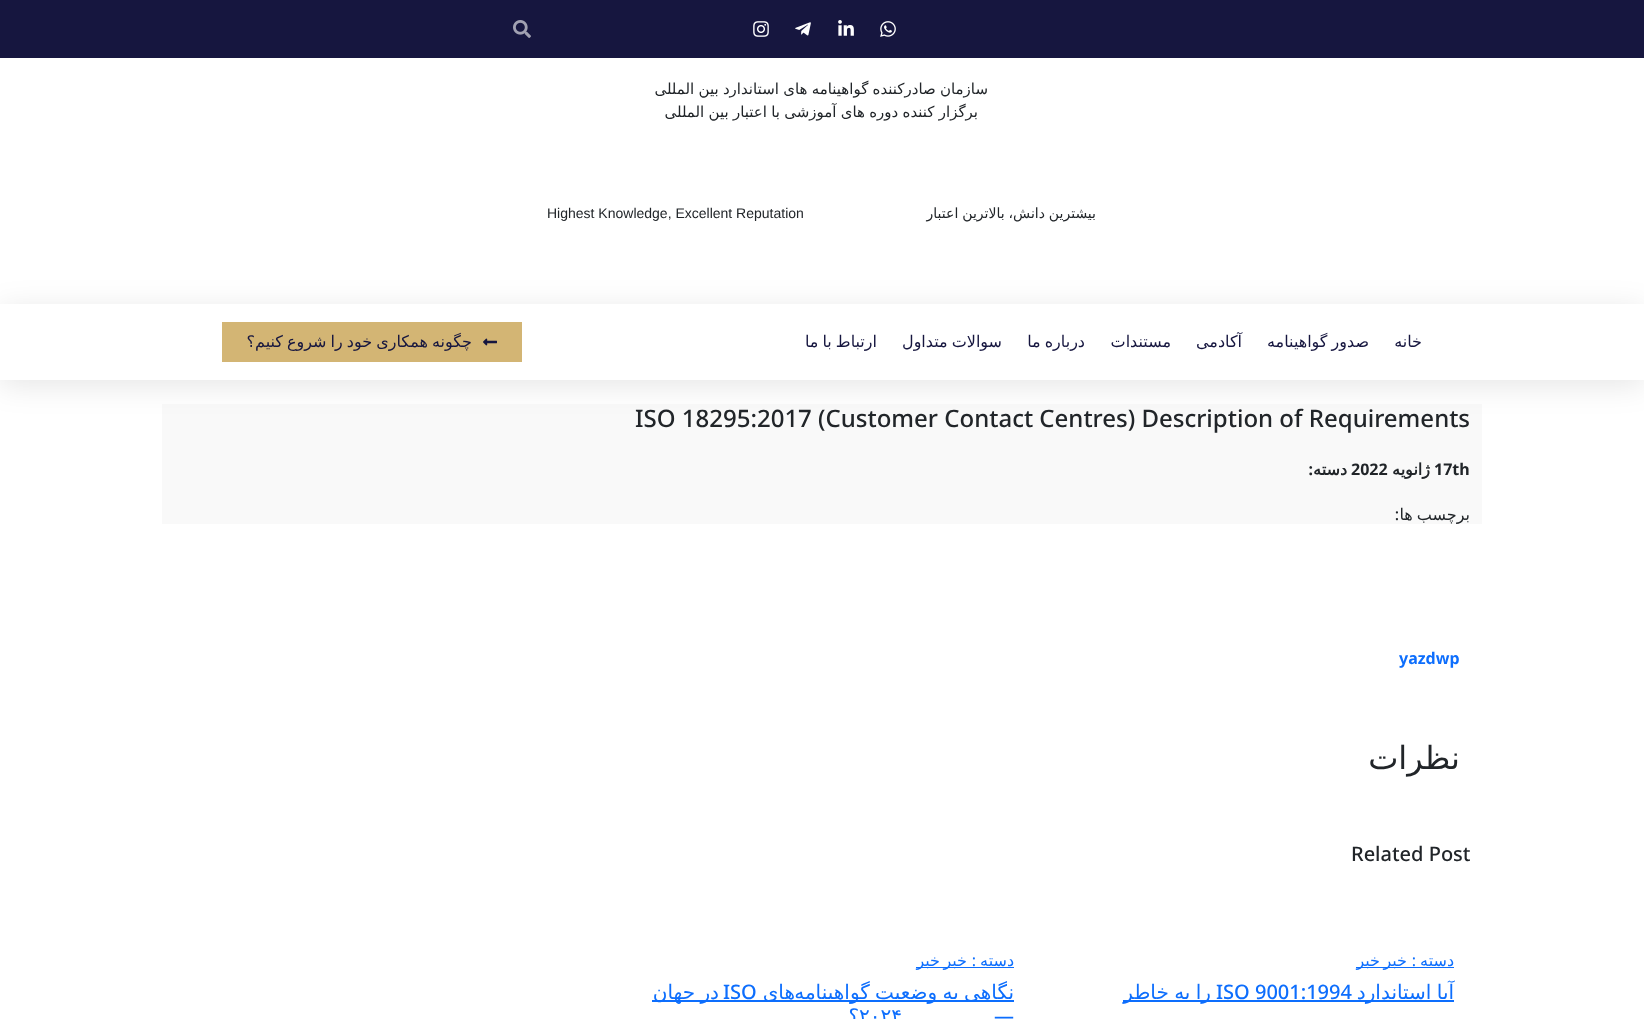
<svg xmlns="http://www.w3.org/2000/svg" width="1644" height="1019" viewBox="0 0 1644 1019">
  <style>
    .t1 { font: 15px DejaVu Sans; direction: rtl; fill: #212529; }
    .t2 { font: 14px DejaVu Sans; direction: rtl; fill: #212529; }
    .t3 { font: 14px Liberation Sans; fill: #212529; }
    .t4 { font: 16px DejaVu Sans; direction: rtl; fill: #16163f; }
    .t5 { font: 500 24px Noto Sans; fill: #212529; }
    .t6 { font: bold 16px Noto Sans; fill: #212529; }
    .t7 { font: bold 16px DejaVu Sans; direction: rtl; fill: #212529; }
    .t8 { font: bold 16px Noto Sans; direction: rtl; fill: #212529; }
    .t9 { font: 16px DejaVu Sans; direction: rtl; fill: #212529; }
    .t10 { font: 500 16px Noto Sans; direction: rtl; fill: #212529; }
    .t11 { font: bold 16px Noto Sans; fill: #0d6efd; }
    .t12 { font: 32px DejaVu Sans; direction: rtl; fill: #212529; }
    .t13 { font: 500 20px Noto Sans; fill: #212529; }
    .t14 { font: 16px DejaVu Sans; direction: rtl; fill: #0d6efd; }
    .t15 { font: 16px Noto Sans; direction: rtl; fill: #0d6efd; }
    .t16 { font: 20px DejaVu Sans; direction: rtl; fill: #0d6efd; }
    .t17 { font: 500 20px Noto Sans; fill: #0d6efd; }
    .t18 { font: 500 20px Noto Sans; direction: rtl; fill: #0d6efd; }
    .t19 { font: 20px DejaVu Sans; fill: #0d6efd; }
  </style>
  <defs>
    <clipPath id="clip1"><path d="M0 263H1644V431H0ZM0 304H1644V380H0Z" clip-rule="evenodd"/></clipPath>
  </defs>
  <rect width="100%" height="100%" fill="#fff"/>
  <rect x="0" y="0" width="1644" height="58" fill="#16163f"/>
  <image x="880" y="21" width="16" height="16" href="images/1.png"/>
  <image x="838" y="20" width="16" height="16" href="images/2.png"/>
  <image x="795" y="22" width="16" height="14" href="images/3.png"/>
  <image x="753" y="21" width="16" height="16" href="images/4.png"/>
  <image x="513" y="20" width="18" height="18" href="images/5.png"/>
  <text x="988" y="94" word-spacing="-0.5" class="t1">سازمان صادرکننده گواهینامه های استاندارد بین المللی</text>
  <text x="978" y="117" word-spacing="-0.5" class="t1">برگزار کننده دوره های آموزشی با اعتبار بین المللی</text>
  <text x="1096" y="218" word-spacing="-0.5" class="t2">بیشترین دانش، بالاترین اعتبار</text>
  <text x="547" y="218" class="t3">Highest Knowledge, Excellent Reputation</text>
  <rect x="162" y="404" width="1320" height="120" fill="#f9f9f9"/>
  <g clip-path="url(#clip1)">
    <rect x="0" y="309" width="1644" height="76" fill="#0000001a" filter="blur(15px)"/>
  </g>
  <text x="1422" y="347" class="t4">خانه</text>
  <text x="1369" y="347" word-spacing="-1" class="t4">صدور گواهینامه</text>
  <text x="1242" y="347" class="t4">آکادمی</text>
  <text x="1171" y="347" class="t4">مستندات</text>
  <text x="1085" y="347" word-spacing="-1" class="t4">درباره ما</text>
  <text x="1002" y="347" word-spacing="-1" class="t4">سوالات متداول</text>
  <text x="877" y="347" word-spacing="-1" class="t4">ارتباط با ما</text>
  <rect x="222" y="322" width="300" height="40" fill="#d3b574"/>
  <image x="483" y="338" width="14" height="8" href="images/6.png"/>
  <text x="472" y="347" word-spacing="-1" class="t4">چگونه همکاری خود را شروع کنیم؟</text>
  <text x="635" y="427" class="t5">ISO 18295:2017 (Customer Contact Centres) Description of Requirements</text>
  <text x="1434" y="475" class="t6">17th</text>
  <text x="1430" y="475" class="t7">ژانویه</text>
  <text x="1351" y="475" class="t6">2022</text>
  <text x="1347" y="475" class="t7">دسته</text>
  <text x="1313" y="475" class="t8">:</text>
  <text x="1470" y="520" word-spacing="-1" class="t9">برچسب ها</text>
  <text x="1399" y="520" class="t10">:</text>
  <text x="1399" y="664" class="t11">yazdwp</text>
  <text x="1460" y="769" class="t12">نظرات</text>
  <text x="1351" y="861" class="t13">Related Post</text>
  <text x="1454" y="966" class="t14">دسته</text>
  <text x="1416" y="966" class="t15">:</text>
  <rect x="1356" y="967" width="98" height="1" fill="#0d6efd"/>
  <text x="1407" y="966" class="t14">خبر</text>
  <text x="1380" y="966" class="t14">خبر</text>
  <rect x="1123" y="1000" width="331" height="2" fill="#0d6efd"/>
  <text x="1454" y="999" word-spacing="-1" class="t16">آیا استاندارد</text>
  <text x="1216" y="999" class="t17">ISO 9001:1994</text>
  <text x="1211" y="999" word-spacing="-1" class="t16">را به خاطر</text>
  <text x="1014" y="966" class="t14">دسته</text>
  <text x="976" y="966" class="t15">:</text>
  <rect x="916" y="967" width="98" height="1" fill="#0d6efd"/>
  <text x="967" y="966" class="t14">خبر</text>
  <text x="940" y="966" class="t14">خبر</text>
  <rect x="652" y="1000" width="362" height="2" fill="#0d6efd"/>
  <text x="1014" y="999" word-spacing="-1" class="t16">نگاهی به وضعیت گواهینامه</text>
  <text x="795" y="999" class="t16">های</text>
  <text x="723" y="999" class="t17">ISO</text>
  <text x="719" y="999" word-spacing="-1" class="t16">در جهان</text>
  <text x="1014" y="1023" class="t18">—</text>
  <text x="859" y="1023" class="t19">۲۰۲۴</text>
  <text x="859" y="1023" class="t16">؟</text>
</svg>
